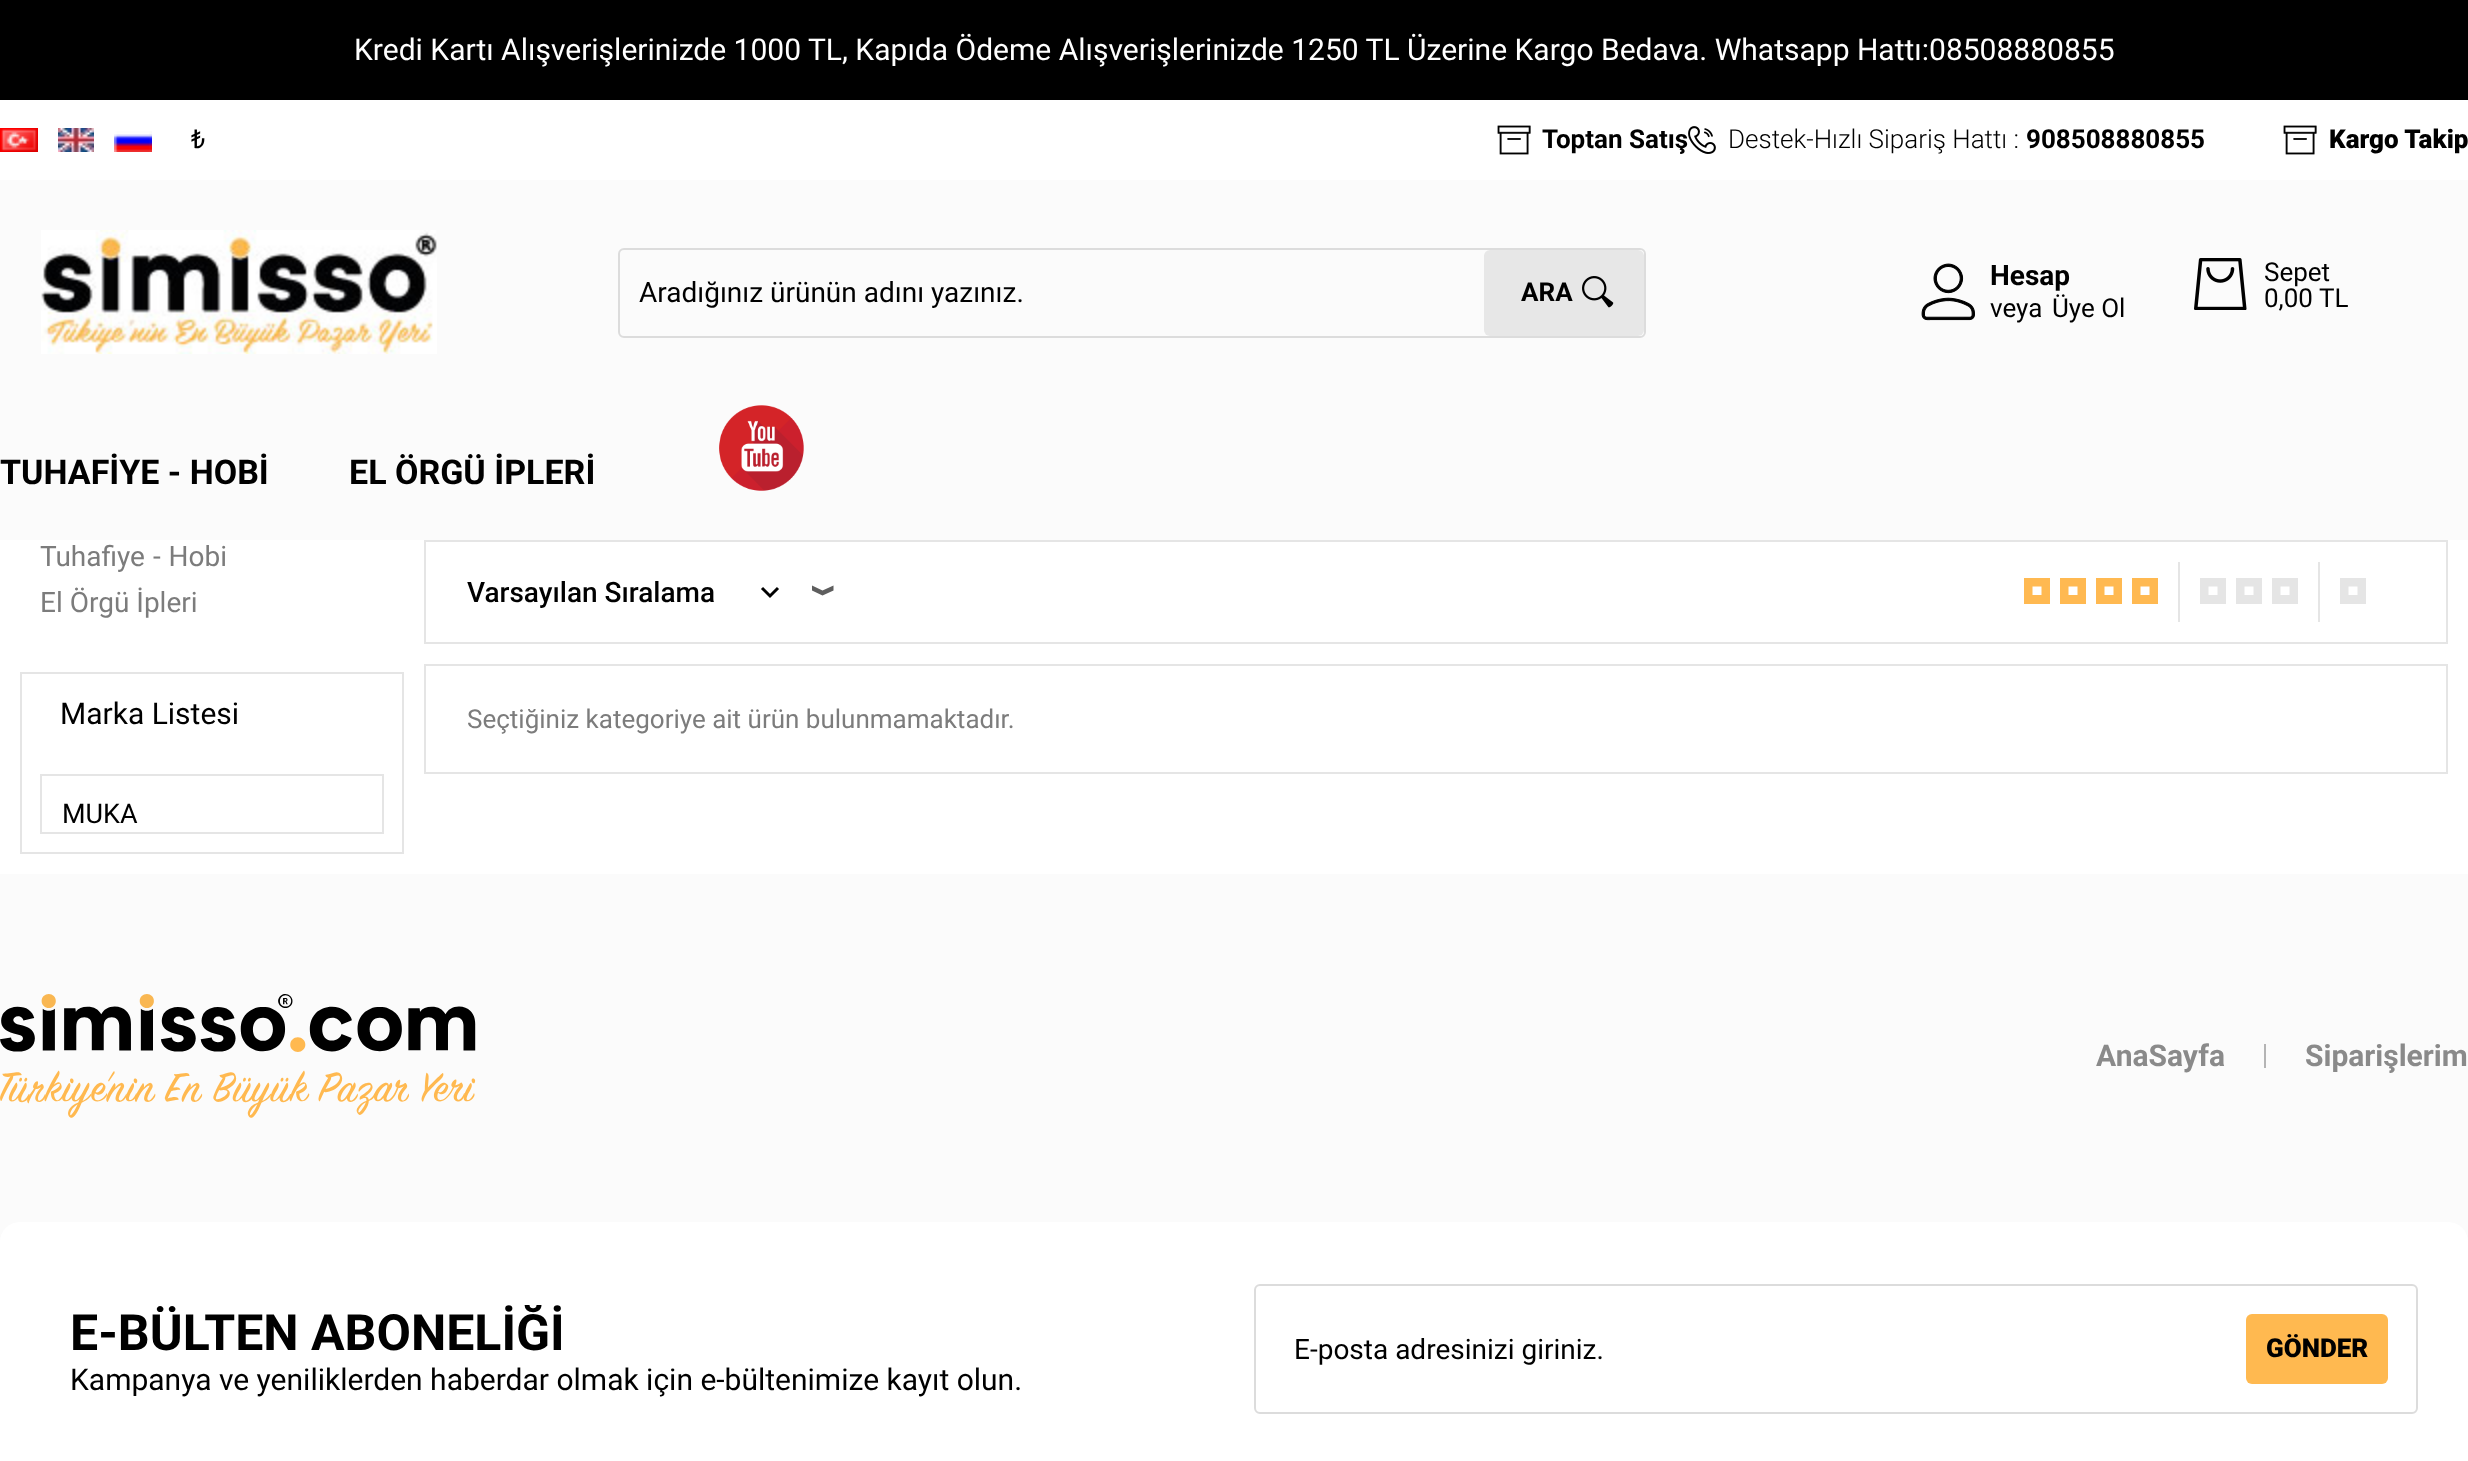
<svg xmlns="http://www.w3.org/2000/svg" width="2468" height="1461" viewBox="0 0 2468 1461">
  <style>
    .t1 { font: 30.02px Roboto; fill: #fff; }
    .t2 { font: 26px Roboto; fill: #000; }
    .t3 { font: bold 26px Roboto; fill: #000; }
    .t4 { font: 300 26px Roboto; fill: #000; }
    .t5 { font: 900 26px Roboto; fill: #000; }
    .t6 { font: 28px Roboto; fill: #000; }
    .t7 { font: bold 28px Roboto; fill: #000; }
    .t8 { font: bold 34px Roboto; fill: #000; }
    .t9 { font: 28px Roboto; fill: #7c7c7c; }
    .t10 { font: 30px Roboto; fill: #000; }
    .t11 { font: 27px Roboto; fill: #000; }
    .t12 { font: 500 28px Roboto; fill: #000; }
    .t13 { font: 26px Roboto; fill: #7c7c7c; }
    .t14 { font: bold 30px Roboto; fill: #8a8a8a; }
    .t15 { font: bold 50px Roboto; fill: #000; }
  </style>
  <rect width="100%" height="100%" fill="#fff"/>
  <rect x="0" y="0" width="2468" height="100" fill="#000"/>
  <text x="354" y="60" class="t1">Kredi Kartı Alışverişlerinizde 1000 TL, Kapıda Ödeme Alışverişlerinizde 1250 TL Üzerine Kargo Bedava. Whatsapp Hattı:08508880855</text>
  <image x="0" y="128" width="38" height="24" href="images/1.png"/>
  <image x="58" y="128" width="36" height="24" href="images/2.png"/>
  <image x="114" y="131" width="38" height="21" href="images/3.png"/>
  <text x="191" y="148" class="t2">₺</text>
  <image x="1497" y="125" width="34" height="30" href="images/4.png"/>
  <text x="1542" y="148" class="t3">Toptan Satış</text>
  <image x="1688" y="126" width="28" height="28" href="images/5.png"/>
  <text x="1728" y="148" class="t4">Destek-Hızlı Sipariş Hattı :</text>
  <text x="2026" y="148" class="t3">908508880855</text>
  <image x="2283" y="125" width="34" height="30" href="images/4.png"/>
  <text x="2329" y="148" class="t5">Kargo Takip</text>
  <rect x="0" y="180" width="2468" height="360" fill="#fbfbfb"/>
  <image x="41" y="230" width="396" height="124" href="images/6.png"/>
  <rect x="619" y="249" width="1026" height="88" rx="5" fill="none" stroke="#dcdcdc" stroke-width="2"/>
  <text x="639" y="302" class="t6">Aradığınız ürünün adını yazınız.</text>
  <rect x="1484" y="250" width="160" height="86" rx="6" fill="#e7e7e7"/>
  <image x="1582" y="276" width="32" height="32" href="images/7.png"/>
  <text x="1521" y="301" class="t3">ARA</text>
  <image x="1921" y="263" width="54" height="58" href="images/8.png"/>
  <text x="1990" y="285" class="t7">Hesap</text>
  <text x="1990" y="317" class="t2">veya</text>
  <text x="2052" y="317" class="t2">Üye Ol</text>
  <image x="2194" y="258" width="53" height="52" href="images/9.png"/>
  <text x="2264" y="281" class="t2">Sepet</text>
  <text x="2264" y="307" class="t2">0,00</text>
  <text x="2319" y="307" class="t2">TL</text>
  <text x="0" y="484" class="t8">TUHAFİYE - HOBİ</text>
  <text x="349" y="484" class="t8">EL ÖRGÜ İPLERİ</text>
  <image x="719" y="405" width="85" height="86" href="images/10.png"/>
  <text x="40" y="566" word-spacing="1" class="t9">Tuhafiye - Hobi</text>
  <text x="40" y="612" class="t9">El Örgü İpleri</text>
  <rect x="21" y="673" width="382" height="180" fill="none" stroke="#e5e5e5" stroke-width="2"/>
  <text x="60" y="724" class="t10">Marka Listesi</text>
  <rect x="41" y="775" width="342" height="58" fill="none" stroke="#e5e5e5" stroke-width="2"/>
  <text x="62" y="823" class="t11">MUKA</text>
  <rect x="425" y="541" width="2022" height="102" fill="none" stroke="#e5e5e5" stroke-width="2"/>
  <path d="M762 588L770 596L778 588" fill="none" stroke="#000" stroke-width="3"/>
  <text x="467" y="602" class="t12">Varsayılan Sıralama</text>
  <path d="M822.5 595.5L812 590.5V585.5L822.5 590.5L833.5 585.5V590.5Z" fill="#5e5e5e"/>
  <rect x="2178" y="562" width="2" height="60" fill="#e5e5e5"/>
  <path d="M2024 604V578H2050V604ZM2041.5 586.5H2032.5V595H2041.5ZM2060 604V578H2086V604ZM2077.5 586.5H2068.5V595H2077.5Z" fill="#ffb951"/>
  <path d="M2096 604V578H2122V604ZM2113.5 586.5H2104.5V595H2113.5ZM2132 604V578H2158V604ZM2149.5 586.5H2140.5V595H2149.5Z" fill="#ffb951"/>
  <rect x="2318" y="562" width="2" height="60" fill="#e5e5e5"/>
  <path d="M2200 604V578H2226V604ZM2217.5 586.5H2208.5V595H2217.5ZM2236 604V578H2262V604ZM2253.5 586.5H2244.5V595H2253.5Z" fill="#e5e5e5"/>
  <path d="M2272 604V578H2298V604ZM2289.5 586.5H2280.5V595H2289.5Z" fill="#e5e5e5"/>
  <path d="M2340 604V578H2366V604ZM2357.5 586.5H2348.5V595H2357.5Z" fill="#e5e5e5"/>
  <rect x="425" y="665" width="2022" height="108" fill="none" stroke="#e5e5e5" stroke-width="2"/>
  <text x="467" y="728" class="t13">Seçtiğiniz kategoriye ait ürün bulunmamaktadır.</text>
  <rect x="0" y="874" width="2468" height="368" fill="#fbfbfb"/>
  <image x="0" y="994" width="476" height="124" href="images/11.png"/>
  <text x="2096" y="1066" class="t14">AnaSayfa</text>
  <rect x="2264" y="1044" width="2" height="24" fill="#b4b4b4"/>
  <text x="2305" y="1066" class="t14">Siparişlerim</text>
  <rect x="0" y="1222" width="2468" height="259" rx="20" fill="#fff"/>
  <text x="70" y="1350" class="t15">E-BÜLTEN ABONELİĞİ</text>
  <text x="70" y="1390" class="t10">Kampanya ve yeniliklerden haberdar olmak için e-bültenimize kayıt olun.</text>
  <rect x="1255" y="1285" width="1162" height="128" rx="5" fill="none" stroke="#dcdcdc" stroke-width="2"/>
  <text x="1294" y="1359" class="t6">E-posta adresinizi giriniz.</text>
  <rect x="2246" y="1314" width="142" height="70" rx="6" fill="#ffb950"/>
  <text x="2266" y="1357" class="t5">GÖNDER</text>
</svg>
